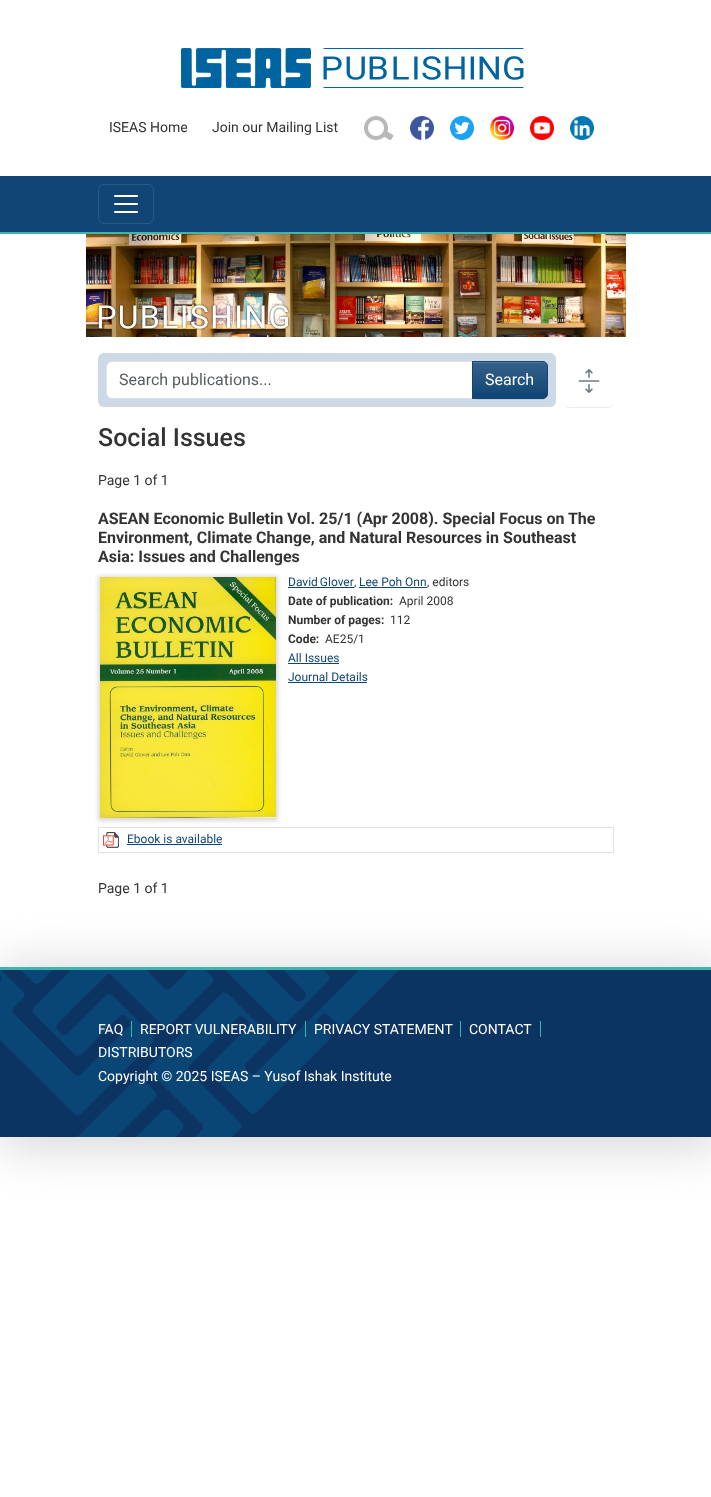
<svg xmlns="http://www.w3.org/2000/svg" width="711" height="1497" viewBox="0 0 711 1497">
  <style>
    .t1 { font: 14px Roboto; fill: #333; }
    .t2 { font: 16px Roboto; fill: #595c5f; }
    .t3 { font: 16px Roboto; fill: #fff; }
    .t4 { font: 500 25px Roboto; fill: #333; }
    .t5 { font: bold 16px Roboto; fill: #333; }
    .t6 { font: 12px Roboto; fill: #114575; }
    .t7 { font: 12px Roboto; fill: #333; }
    .t8 { font: bold 12px Roboto; fill: #333; }
    .t9 { font: 14px Roboto; fill: #fff; }
  </style>
  <defs>
    <clipPath id="clip1"><path d="M472 361H542C545.5 361 548 363.5 548 367V393C548 396.5 545.5 399 542 399H472Z"/></clipPath>
    <linearGradient id="g1" gradientUnits="userSpaceOnUse" x1="510" y1="362" x2="510" y2="398"><stop offset="0" stop-color="#fff" stop-opacity="0.15"/><stop offset="1" stop-color="#fff" stop-opacity="0"/></linearGradient>
    <clipPath id="clip2"><path d="M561 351H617V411H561ZM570 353H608C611.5 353 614 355.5 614 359V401C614 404.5 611.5 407 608 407H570C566.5 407 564 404.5 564 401V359C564 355.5 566.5 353 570 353Z" clip-rule="evenodd"/></clipPath>
  </defs>
  <rect width="100%" height="100%" fill="#fff"/>
  <image x="181" y="48" width="343" height="40" href="images/1.png"/>
  <text x="109" y="132" class="t1">ISEAS Home</text>
  <text x="212" y="132" class="t1">Join our Mailing List</text>
  <image x="364" y="116" width="30" height="25" href="images/2.png"/>
  <image x="410" y="116" width="24" height="24" href="images/3.png"/>
  <image x="450" y="116" width="24" height="24" href="images/4.png"/>
  <image x="490" y="116" width="24" height="24" href="images/5.png"/>
  <image x="530" y="116" width="24" height="24" href="images/6.png"/>
  <image x="570" y="116" width="24" height="24" href="images/7.png"/>
  <rect x="0" y="176" width="711" height="56" fill="#114575"/>
  <rect x="0" y="232" width="711" height="2" fill="#3db5af"/>
  <rect x="98.5" y="184.5" width="55" height="39" rx="5.5" fill="none" stroke="#295883"/>
  <image x="114" y="195" width="24" height="18" href="images/8.png"/>
  <image x="86" y="234" width="540" height="103" href="images/9.png"/>
  <rect x="98" y="353" width="458" height="54" rx="6" fill="#ced9e7"/>
  <path d="M112 361.5H472.5V398.5H112C109 398.5 106.5 396 106.5 393V367C106.5 364 109 361.5 112 361.5Z" fill="#fff" stroke="#dee2e6"/>
  <text x="119" y="385" class="t2">Search publications...</text>
  <rect x="472" y="362" width="76" height="38" rx="6" fill="#00000012" filter="blur(0.5px)"/>
  <path d="M472 361H542C545.5 361 548 363.5 548 367V393C548 396.5 545.5 399 542 399H472Z" fill="#114575"/>
  <g clip-path="url(#clip1)">
    <rect x="473" y="362" width="75" height="31" fill="url(#g1)"/>
  </g>
  <path d="M473 363H542C545 363 547 365 547 368V367C547 364 545 362 542 362H473Z" fill="#53789b"/>
  <path d="M472.5 361.5H542C545 361.5 547.5 364 547.5 367V393C547.5 396 545 398.5 542 398.5H472.5Z" fill="none" stroke="#114575"/>
  <text x="485" y="385" class="t3">Search</text>
  <g clip-path="url(#clip2)">
    <rect x="564" y="354" width="50" height="54" rx="6" fill="#00000012" filter="blur(0.5px)"/>
  </g>
  <image x="578" y="369" width="22" height="24" href="images/10.png"/>
  <text x="98" y="446" class="t4">Social Issues</text>
  <text x="98" y="485" class="t1">Page 1 of 1</text>
  <text x="98" y="524" class="t5">ASEAN Economic Bulletin Vol. 25/1 (Apr 2008). Special Focus on The</text>
  <text x="98" y="543" class="t5">Environment, Climate Change, and Natural Resources in Southeast</text>
  <text x="98" y="562" class="t5">Asia: Issues and Challenges</text>
  <rect x="98.5" y="827.5" width="515" height="25" fill="none" stroke="#e2e2e2"/>
  <rect x="98" y="576" width="180" height="245" fill="#00000026" filter="blur(2px)"/>
  <image x="100" y="577" width="176" height="241" href="images/11.png"/>
  <text x="288" y="586" word-spacing="-1" class="t6">David Glover</text>
  <rect x="288" y="587" width="66" height="1" fill="#114575"/>
  <text x="354" y="586" class="t7">,</text>
  <text x="359" y="586" class="t6">Lee Poh Onn</text>
  <rect x="359" y="587" width="68" height="1" fill="#114575"/>
  <text x="427" y="586" class="t7">, editors</text>
  <text x="288" y="605" class="t8">Date of publication:</text>
  <text x="399" y="605" class="t7">April 2008</text>
  <text x="288" y="624" class="t8">Number of pages:</text>
  <text x="390" y="624" class="t7">112</text>
  <text x="288" y="643" class="t8">Code:</text>
  <text x="325" y="643" class="t7">AE25/1</text>
  <text x="288" y="662" class="t6">All Issues</text>
  <rect x="288" y="663" width="51" height="1" fill="#114575"/>
  <text x="288" y="681" class="t6">Journal Details</text>
  <rect x="288" y="682" width="79" height="1" fill="#114575"/>
  <image x="103" y="832" width="16" height="16" href="images/12.png"/>
  <text x="127" y="843" class="t6">Ebook is available</text>
  <rect x="127" y="844" width="95" height="1" fill="#114575"/>
  <rect x="0" y="967" width="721" height="180" fill="#d6d6d6" filter="blur(25px)"/>
  <text x="98" y="893" class="t1">Page 1 of 1</text>
  <rect x="0" y="970" width="711" height="167" fill="#0c3463"/>
  <image x="0" y="970" width="398" height="167" href="images/13.png"/>
  <rect x="0" y="967" width="711" height="3" fill="#3db5af"/>
  <text x="98" y="1034" class="t9">FAQ</text>
  <rect x="131" y="1021" width="1" height="16" fill="#3db5af"/>
  <text x="140" y="1034" class="t9">REPORT VULNERABILITY</text>
  <rect x="305" y="1021" width="1" height="16" fill="#3db5af"/>
  <text x="314" y="1034" class="t9">PRIVACY STATEMENT</text>
  <rect x="460" y="1021" width="1" height="16" fill="#3db5af"/>
  <text x="469" y="1034" class="t9">CONTACT</text>
  <rect x="540" y="1021" width="1" height="16" fill="#3db5af"/>
  <text x="98" y="1057" class="t9">DISTRIBUTORS</text>
  <text x="98" y="1081" class="t9">Copyright © 2025 ISEAS – Yusof Ishak Institute</text>
</svg>
